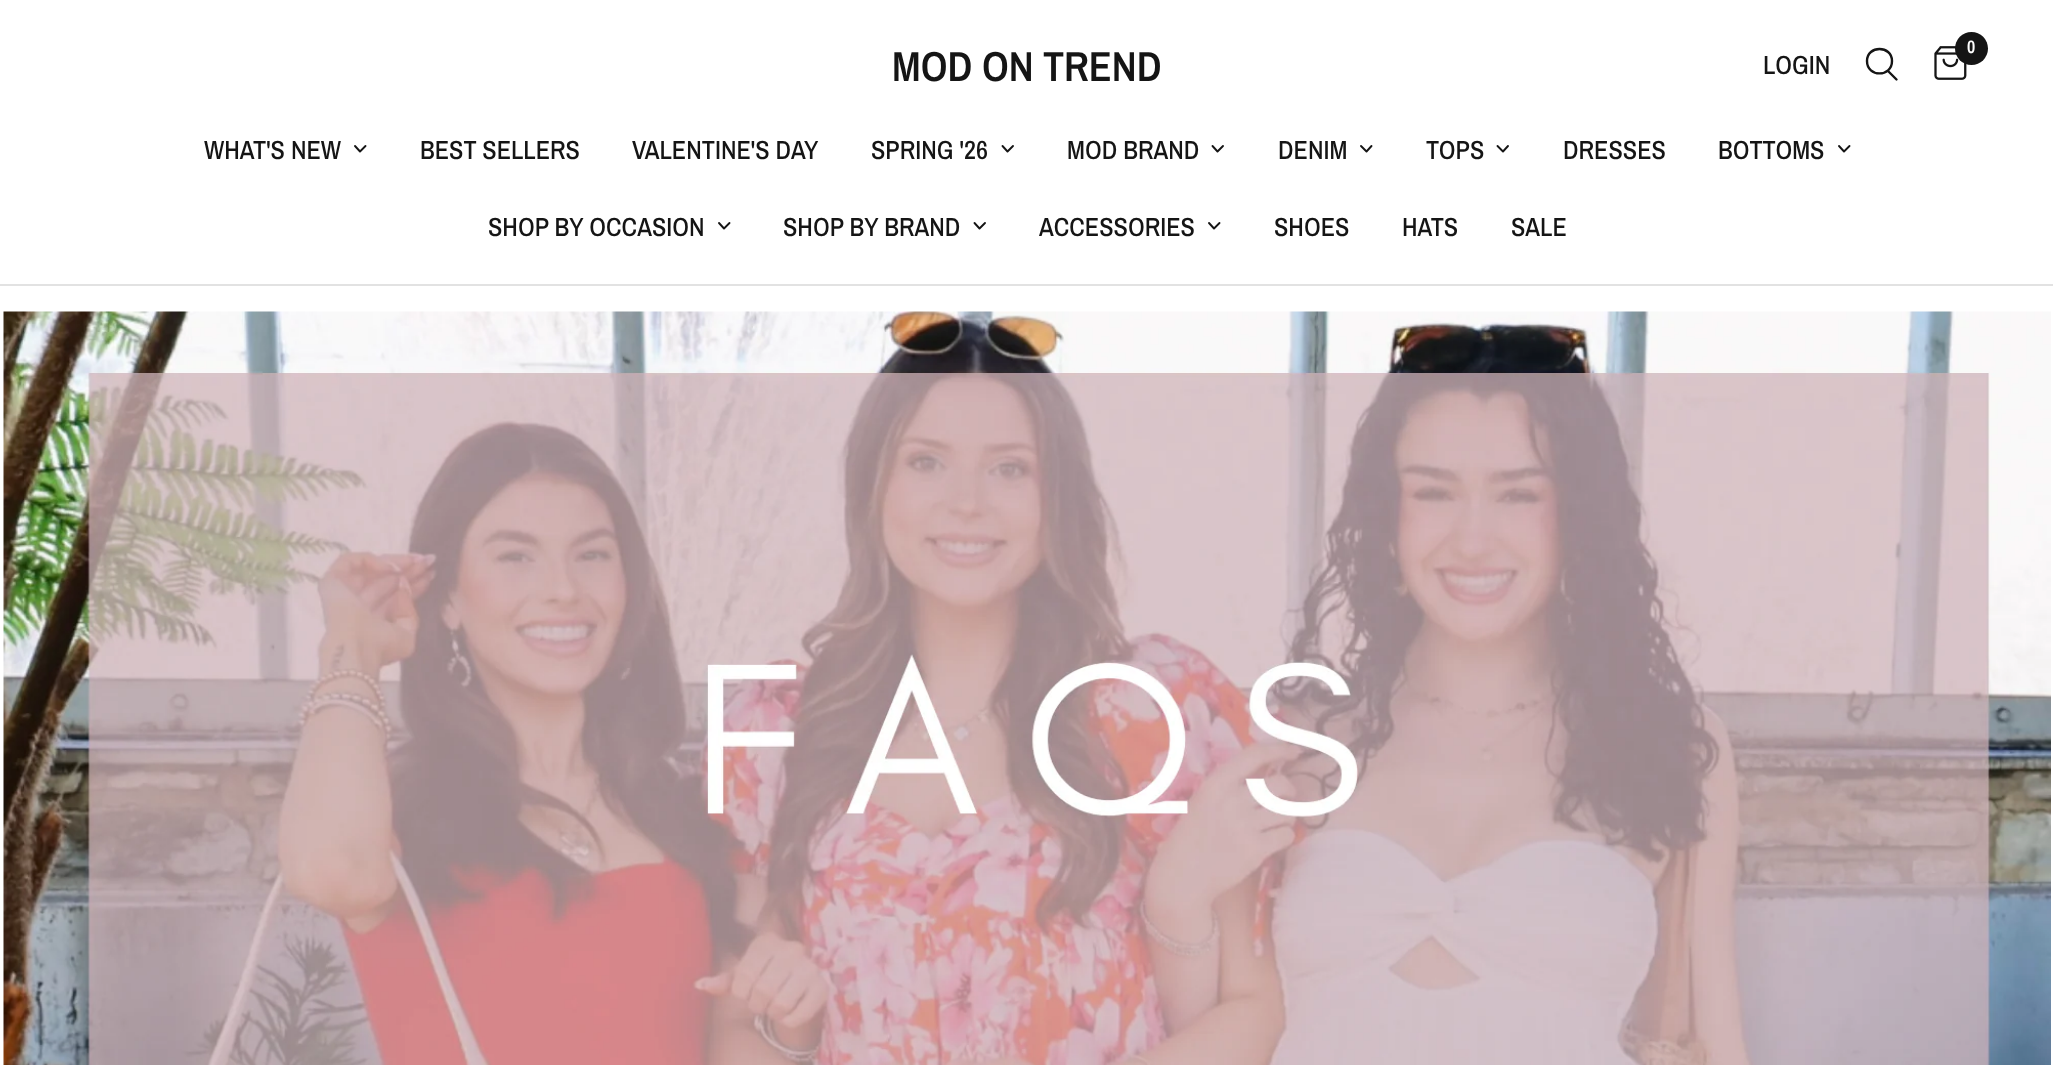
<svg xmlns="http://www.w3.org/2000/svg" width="2053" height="1065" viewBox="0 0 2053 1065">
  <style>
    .t1 { font: 600 42px Archivo Narrow; fill: #151515; }
    .t2 { font: 500 26.25px Archivo Narrow; fill: #151515; }
    .t3 { font: 600 18px Archivo Narrow; fill: #fff; }
  </style>
  <rect width="100%" height="100%" fill="#fff"/>
  <rect x="0" y="284" width="2053" height="2" fill="#e2e2e2"/>
  <text x="892" y="81" class="t1">MOD ON TREND</text>
  <text x="1763" y="74" class="t2">LOGIN</text>
  <path d="M1888 71L1896.5 79.5M1892 61C1892 77.5 1867 77.5 1867 61C1867 45 1892 45 1892 61Z" fill="none" stroke="#151515" stroke-width="2.4" stroke-linecap="round" stroke-linejoin="round"/>
  <image x="1934" y="46" width="33" height="34" href="images/1.png"/>
  <circle cx="1971.5" cy="48.5" r="16.5" fill="#151515"/>
  <text x="1967" y="53" class="t3">0</text>
  <text x="204" y="159" class="t2">WHAT'S NEW</text>
  <path d="M365.5 146L360 151.5L355 146" fill="none" stroke="#151515" stroke-width="1.9" stroke-linecap="round" stroke-linejoin="round"/>
  <text x="420" y="159" class="t2">BEST SELLERS</text>
  <text x="632" y="159" class="t2">VALENTINE'S DAY</text>
  <text x="871" y="159" class="t2">SPRING '26</text>
  <path d="M1013 146L1007.5 151.5L1002.5 146" fill="none" stroke="#151515" stroke-width="1.9" stroke-linecap="round" stroke-linejoin="round"/>
  <text x="1067" y="159" class="t2">MOD BRAND</text>
  <path d="M1223 146L1217.5 151.5L1212.5 146" fill="none" stroke="#151515" stroke-width="1.9" stroke-linecap="round" stroke-linejoin="round"/>
  <text x="1278" y="159" class="t2">DENIM</text>
  <path d="M1371.5 146L1366.5 151.5L1361 146" fill="none" stroke="#151515" stroke-width="1.9" stroke-linecap="round" stroke-linejoin="round"/>
  <text x="1426" y="159" class="t2">TOPS</text>
  <path d="M1508 146L1503 151.5L1497.5 146" fill="none" stroke="#151515" stroke-width="1.9" stroke-linecap="round" stroke-linejoin="round"/>
  <text x="1563" y="159" class="t2">DRESSES</text>
  <text x="1718" y="159" class="t2">BOTTOMS</text>
  <path d="M1849.5 146L1844 151.5L1839 146" fill="none" stroke="#151515" stroke-width="1.9" stroke-linecap="round" stroke-linejoin="round"/>
  <text x="488" y="236" class="t2">SHOP BY OCCASION</text>
  <path d="M729.5 223L724 228.5L719 223" fill="none" stroke="#151515" stroke-width="1.9" stroke-linecap="round" stroke-linejoin="round"/>
  <text x="783" y="236" class="t2">SHOP BY BRAND</text>
  <path d="M985 223L979.5 228.5L974.5 223" fill="none" stroke="#151515" stroke-width="1.9" stroke-linecap="round" stroke-linejoin="round"/>
  <text x="1039" y="236" class="t2">ACCESSORIES</text>
  <path d="M1219.5 223L1214 228.5L1209 223" fill="none" stroke="#151515" stroke-width="1.9" stroke-linecap="round" stroke-linejoin="round"/>
  <text x="1274" y="236" class="t2">SHOES</text>
  <text x="1402" y="236" class="t2">HATS</text>
  <text x="1511" y="236" class="t2">SALE</text>
  <image x="3" y="311" width="2048" height="754" href="images/2.png"/>
</svg>
